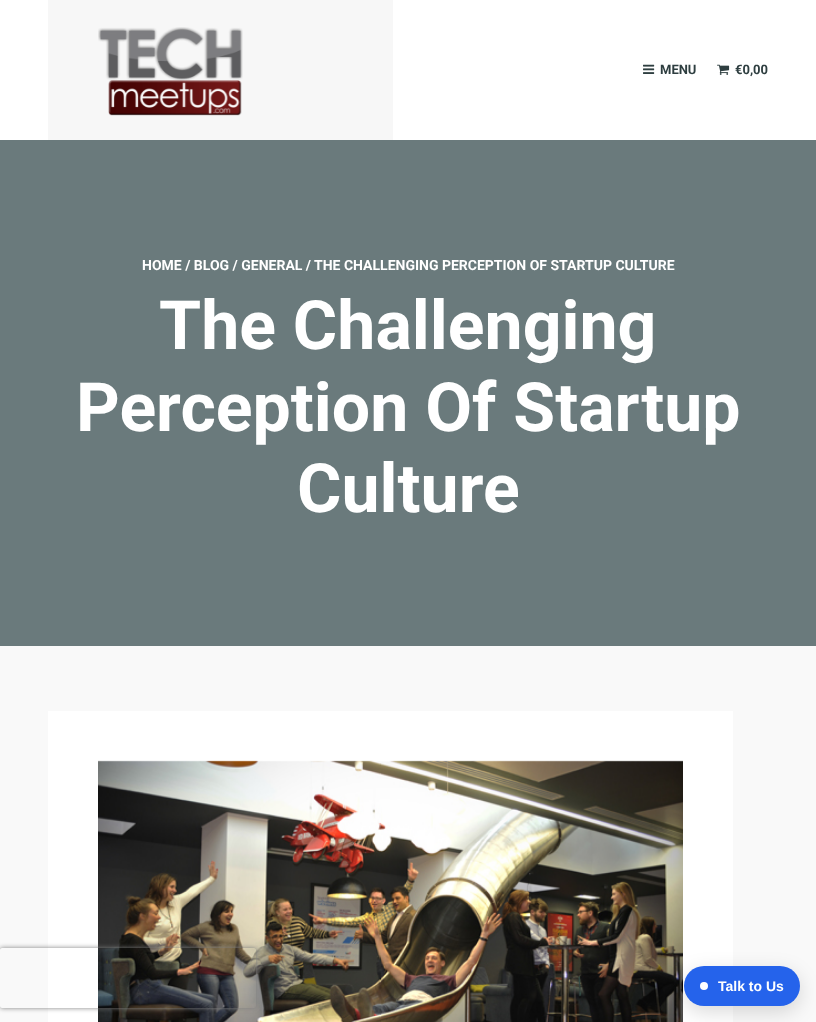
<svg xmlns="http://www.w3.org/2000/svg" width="816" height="1022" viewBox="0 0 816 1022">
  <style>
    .t1 { font: bold 13px Roboto; fill: #2e3e40; }
    .t2 { font: bold 14px Roboto; fill: #fff; }
    .t3 { font: bold 68px Roboto; fill: #fff; }
    .t4 { font: bold 14px Liberation Sans; fill: #fff; }
  </style>
  <defs>
    <clipPath id="clip1"><path d="M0 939H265V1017H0ZM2 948H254C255 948 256 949 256 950V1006C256 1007 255 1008 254 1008H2C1 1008 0 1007 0 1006V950C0 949 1 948 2 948Z" clip-rule="evenodd"/></clipPath>
  </defs>
  <rect width="100%" height="100%" fill="#f9f9f9"/>
  <rect x="0" y="0" width="816" height="140" fill="#fff"/>
  <rect x="48" y="0" width="345" height="140" fill="#f7f7f7"/>
  <image x="98" y="27" width="145" height="89" href="images/1.png"/>
  <image x="643" y="64" width="12" height="10" href="images/2.png"/>
  <text x="660" y="74" class="t1">MENU</text>
  <image x="717" y="64" width="13" height="11" href="images/3.png"/>
  <text x="735" y="74" class="t1">€0,00</text>
  <rect x="0" y="140" width="816" height="506" fill="#6a7a7c"/>
  <text x="142" y="270" class="t2">HOME / BLOG / GENERAL /</text>
  <text x="314" y="270" class="t2">THE CHALLENGING PERCEPTION OF STARTUP CULTURE</text>
  <text x="159" y="349" class="t3">The Challenging</text>
  <text x="76" y="431" class="t3">Perception Of Startup</text>
  <text x="297" y="512" class="t3">Culture</text>
  <rect x="48" y="711" width="685" height="311" fill="#fff"/>
  <image x="98" y="760" width="585" height="262" href="images/4.png"/>
  <g clip-path="url(#clip1)">
    <rect x="0" y="948" width="256" height="60" rx="2" fill="#808080" filter="blur(2.5px)"/>
  </g>
  <rect x="684" y="972" width="116" height="40" rx="20" fill="#00000026" filter="blur(10px)"/>
  <rect x="684" y="966" width="116" height="40" rx="20" fill="#2563eb"/>
  <circle cx="704" cy="986" r="4" fill="#fff"/>
  <text x="718" y="991" class="t4">Talk to Us</text>
</svg>
